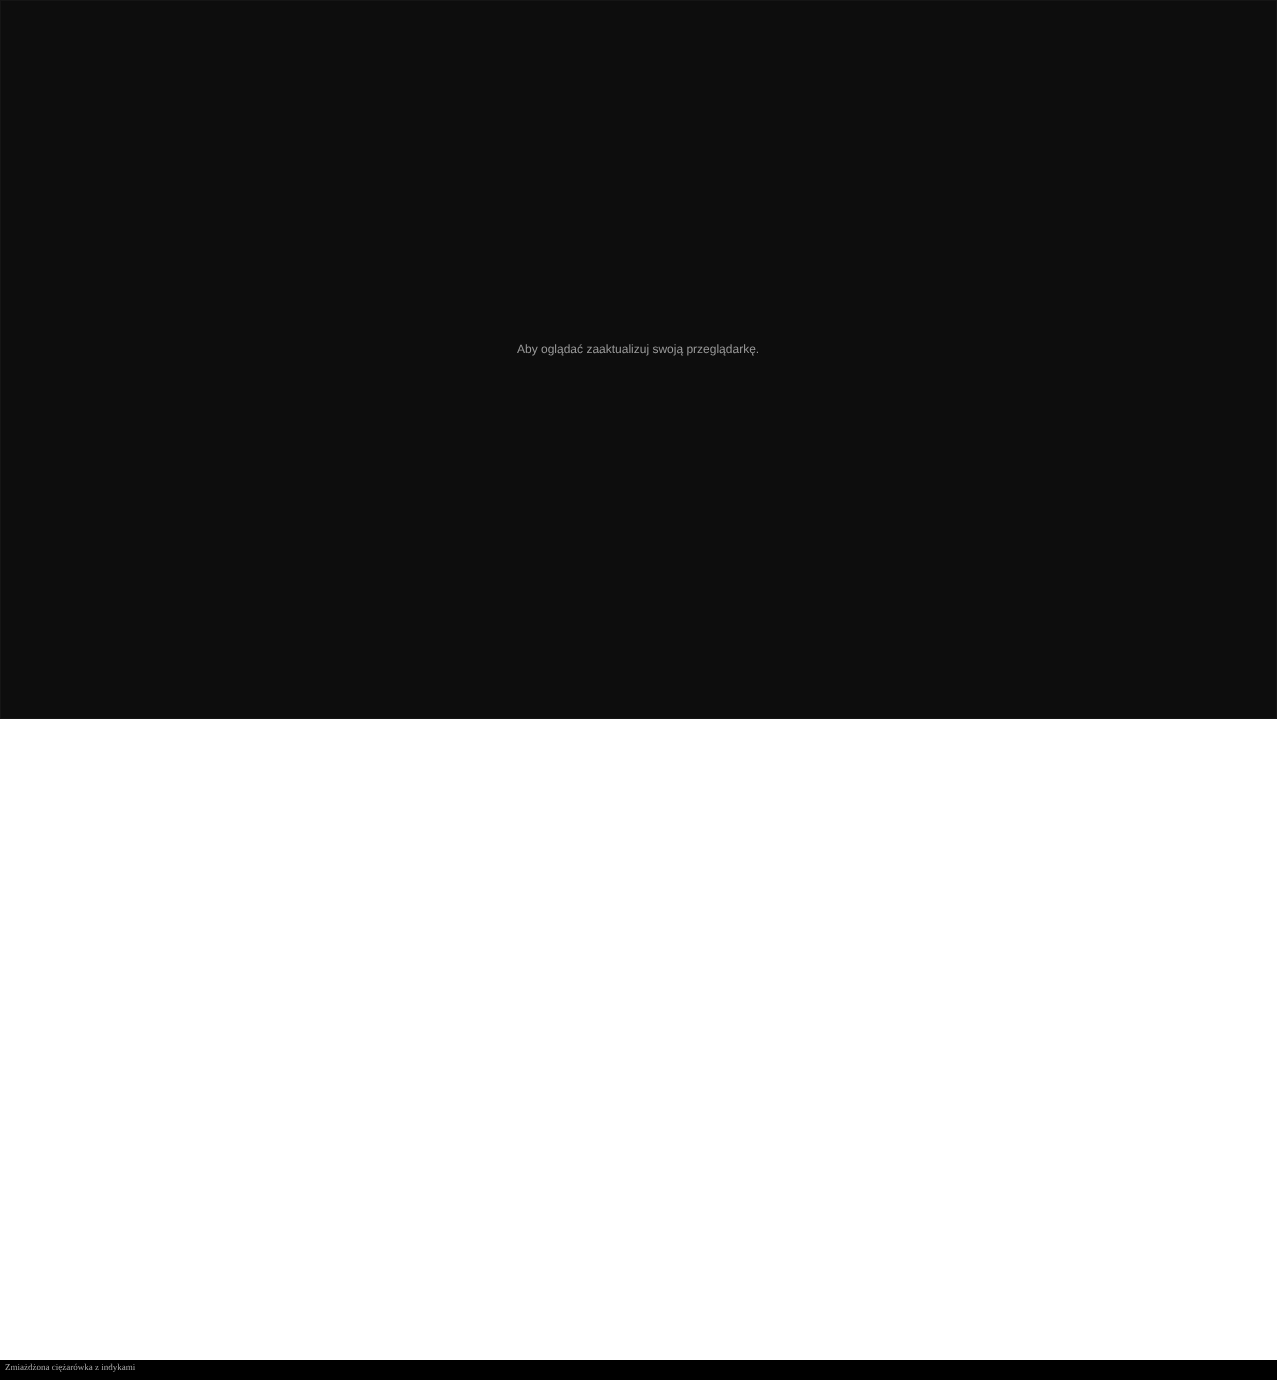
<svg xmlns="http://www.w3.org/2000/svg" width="1277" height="1380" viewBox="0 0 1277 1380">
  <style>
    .t1 { font: 12px Liberation Sans; fill: #999; }
    .t2 { font: 9px Liberation Serif; fill: #aaa; }
  </style>
  <rect width="100%" height="100%" fill="#fff"/>
  <rect x="0.5" y="0.5" width="1276" height="718" fill="#0d0d0d" stroke="#151515"/>
  <text x="517" y="353" class="t1">Aby oglądać zaaktualizuj swoją przeglądarkę.</text>
  <rect x="0" y="1360" width="1277" height="20" fill="#000"/>
  <text x="5" y="1370" class="t2">Zmiażdżona ciężarówka z indykami</text>
</svg>
